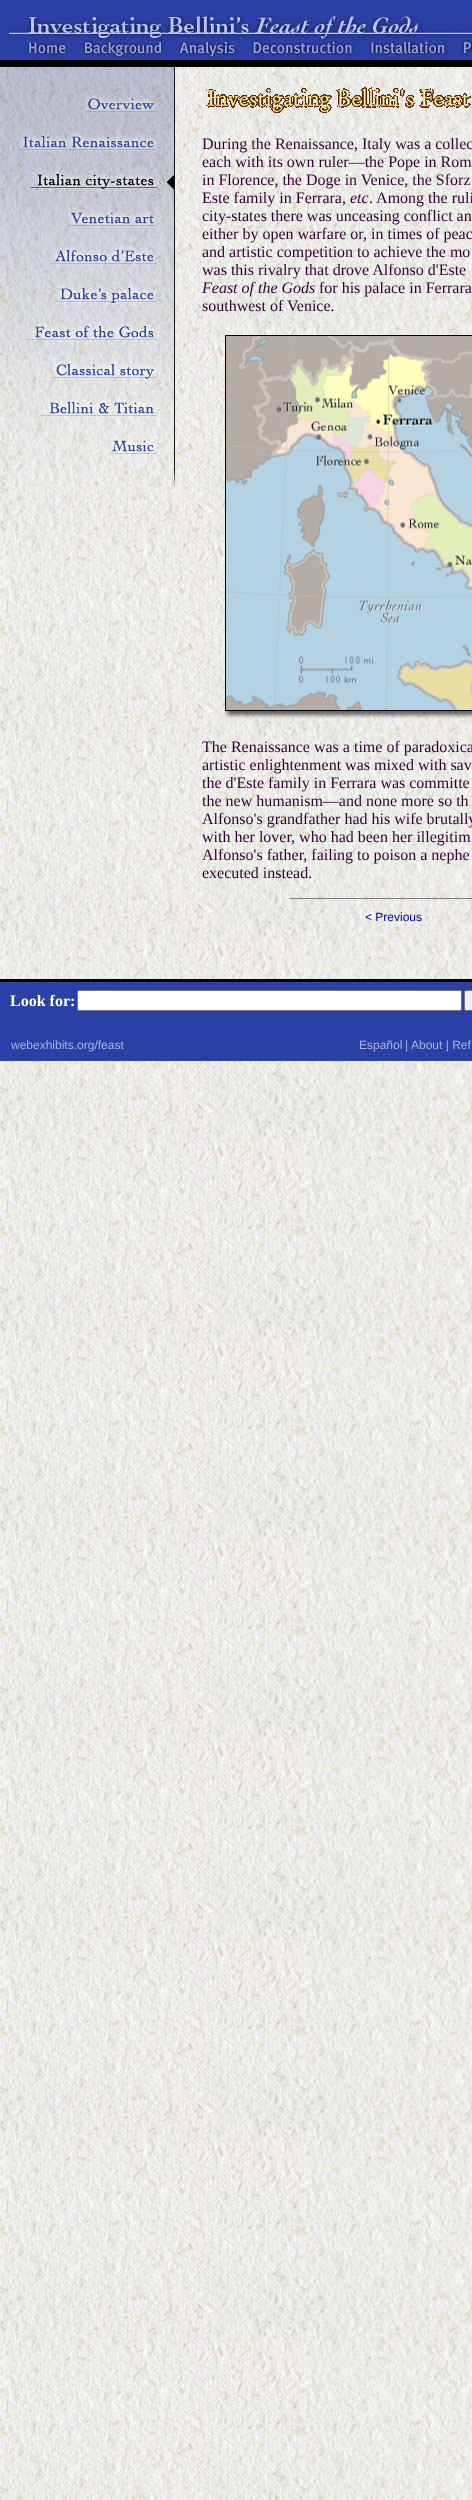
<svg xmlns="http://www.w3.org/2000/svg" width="472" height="2500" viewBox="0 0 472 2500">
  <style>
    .t1 { font: 16px Liberation Serif; fill: #303; }
    .t2 { font: italic 16px Liberation Serif; fill: #303; }
    .t3 { font: 12px Liberation Sans; fill: #009; }
    .t4 { font: bold 16px Liberation Serif; fill: #fff; }
    .t5 { font: 12px Liberation Sans; fill: #aab3db; }
  </style>
  <rect width="100%" height="100%" fill="#fff"/>
  <image x="0" y="67" width="472" height="2433" href="images/1.png"/>
  <rect x="0" y="0" width="472" height="60" fill="#2b40a6"/>
  <image x="5" y="12" width="467" height="27" href="images/2.png"/>
  <image x="8" y="40" width="66" height="17" href="images/3.png"/>
  <image x="75" y="39" width="96" height="18" href="images/4.png"/>
  <image x="173" y="39" width="71" height="18" href="images/5.png"/>
  <image x="244" y="39" width="117" height="18" href="images/6.png"/>
  <image x="361" y="39" width="93" height="18" href="images/7.png"/>
  <image x="454" y="39" width="18" height="18" href="images/8.png"/>
  <rect x="0" y="60" width="472" height="7" fill="#000"/>
  <image x="0" y="67" width="175" height="56" href="images/9.png"/>
  <image x="0" y="123" width="175" height="39" href="images/10.png"/>
  <image x="0" y="162" width="175" height="39" href="images/11.png"/>
  <image x="0" y="201" width="175" height="35" href="images/12.png"/>
  <image x="0" y="236" width="175" height="41" href="images/13.png"/>
  <image x="0" y="277" width="175" height="37" href="images/14.png"/>
  <image x="0" y="314" width="175" height="37" href="images/15.png"/>
  <image x="0" y="351" width="175" height="38" href="images/16.png"/>
  <image x="0" y="389" width="175" height="38" href="images/17.png"/>
  <image x="0" y="427" width="175" height="60" href="images/18.png"/>
  <image x="206" y="87" width="265" height="26" href="images/19.png"/>
  <text x="202" y="149" class="t1">During the Renaissance, Italy was a collec</text>
  <text x="202" y="167" class="t1">each with its own ruler—the Pope in Rom</text>
  <text x="202" y="185" class="t1">in Florence, the Doge in Venice, the Sforz</text>
  <text x="202" y="203" class="t1">Este family in Ferrara,</text>
  <text x="350" y="203" class="t2">etc</text>
  <text x="369" y="203" class="t1">. Among the ruli</text>
  <text x="202" y="221" class="t1">city-states there was unceasing conflict an</text>
  <text x="202" y="239" class="t1">either by open warfare or, in times of peac</text>
  <text x="202" y="257" class="t1">and artistic competition to achieve the mo</text>
  <text x="202" y="275" class="t1">was this rivalry that drove Alfonso d'Este</text>
  <text x="202" y="293" class="t2">Feast of the Gods</text>
  <text x="319" y="293" class="t1">for his palace in Ferrara</text>
  <text x="202" y="311" class="t1">southwest of Venice.</text>
  <image x="225" y="335" width="247" height="383" href="images/20.png"/>
  <text x="202" y="752" class="t1">The Renaissance was a time of paradoxica</text>
  <text x="202" y="770" class="t1">artistic enlightenment was mixed with sav</text>
  <text x="202" y="788" class="t1">the d'Este family in Ferrara was committe</text>
  <text x="202" y="806" class="t1">the new humanism—and none more so th</text>
  <text x="202" y="824" class="t1">Alfonso's grandfather had his wife brutally</text>
  <text x="202" y="842" class="t1">with her lover, who had been her illegitim</text>
  <text x="202" y="860" class="t1">Alfonso's father, failing to poison a nephe</text>
  <text x="202" y="878" class="t1">executed instead.</text>
  <rect x="290" y="898" width="182" height="1" fill="#808080"/>
  <text x="365" y="921" class="t3">&lt; Previous</text>
  <rect x="0" y="979" width="472" height="3" fill="#000"/>
  <rect x="0" y="982" width="472" height="79" fill="#2b40a6"/>
  <text x="10" y="1006" class="t4">Look for:</text>
  <rect x="77.5" y="990.5" width="384" height="20" rx="1.5" fill="#fff" stroke="#767676"/>
  <rect x="464.5" y="990.5" width="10" height="20" rx="1.5" fill="#efefef" stroke="#767676"/>
  <text x="11" y="1049" class="t5">webexhibits.org/feast</text>
  <text x="359" y="1049" class="t5">Español</text>
  <text x="405" y="1049" class="t5">|</text>
  <text x="411" y="1049" class="t5">About | Ref</text>
</svg>
